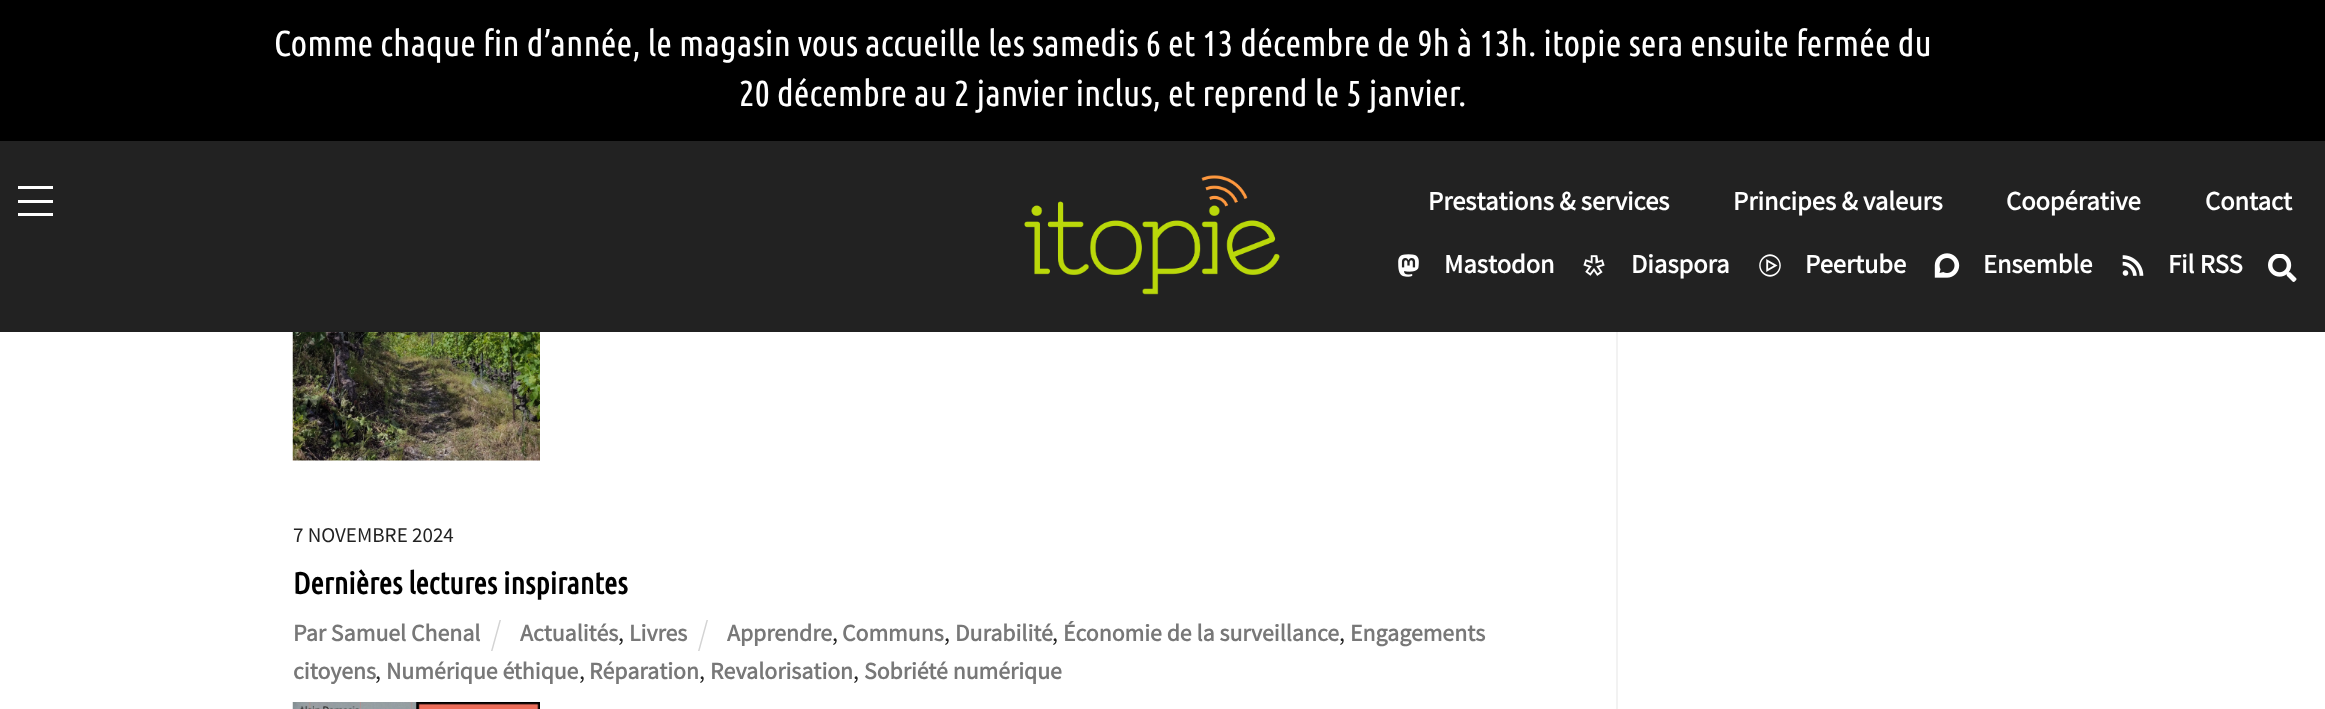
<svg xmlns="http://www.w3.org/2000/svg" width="2325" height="709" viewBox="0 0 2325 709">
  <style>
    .t1 { font: 36.05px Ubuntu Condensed; fill: #fff; }
    .t2 { font: bold 26.5px Source Sans Pro; fill: #fff; }
    .t3 { font: 21px Source Sans Pro; fill: #222; }
    .t4 { font: bold 30.4px Ubuntu Condensed; fill: #000; }
    .t5 { font: bold 23.75px Source Sans Pro; fill: #787878; }
    .t6 { font: 23.75px Source Sans Pro; fill: #222; }
  </style>
  <rect width="100%" height="100%" fill="#fff"/>
  <rect x="0" y="0" width="2325" height="141" fill="#000"/>
  <text x="274" y="56" class="t1">Comme chaque fin d’année, le magasin vous accueille les samedis 6 et 13 décembre de 9h à 13h. itopie sera ensuite fermée du</text>
  <text x="739" y="106" class="t1">20 décembre au 2 janvier inclus, et reprend le 5 janvier.</text>
  <rect x="0" y="141" width="2325" height="189" fill="#222"/>
  <rect x="0" y="330" width="2325" height="2" fill="#202020"/>
  <image x="1024" y="175" width="256" height="120" href="images/1.png"/>
  <rect x="18" y="213" width="35" height="3" fill="#fff"/>
  <rect x="18" y="186" width="35" height="3" fill="#fff"/>
  <rect x="18" y="200" width="35" height="3" fill="#fff"/>
  <text x="1428" y="210" class="t2">Prestations &amp; services</text>
  <text x="1733" y="210" class="t2">Principes &amp; valeurs</text>
  <text x="2006" y="210" class="t2">Coopérative</text>
  <text x="2205" y="210" class="t2">Contact</text>
  <image x="1398" y="254" width="21" height="23" href="images/2.png"/>
  <text x="1444" y="273" class="t2">Mastodon</text>
  <image x="1583" y="255" width="22" height="21" href="images/3.png"/>
  <text x="1631" y="273" class="t2">Diaspora</text>
  <image x="1759" y="254" width="22" height="23" href="images/4.png"/>
  <text x="1805" y="273" class="t2">Peertube</text>
  <image x="1934" y="253" width="26" height="25" href="images/5.png"/>
  <text x="1983" y="273" class="t2">Ensemble</text>
  <image x="2122" y="255" width="22" height="21" href="images/6.png"/>
  <text x="2168" y="273" class="t2">Fil RSS</text>
  <image x="2268" y="254" width="29" height="28" href="images/7.png"/>
  <image x="292" y="332" width="248" height="129" href="images/8.png"/>
  <text x="293" y="542" class="t3">7 NOVEMBRE 2024</text>
  <text x="293" y="594" class="t4">Dernières lectures inspirantes</text>
  <path d="M706.5 620H708L699.5 651H698Z" fill="#d3d3d3"/>
  <text x="727" y="641" class="t5">Apprendre</text>
  <text x="832" y="641" class="t6">,</text>
  <text x="842" y="641" class="t5">Communs</text>
  <text x="944" y="641" class="t6">,</text>
  <text x="955" y="641" class="t5">Durabilité</text>
  <text x="1052" y="641" class="t6">,</text>
  <text x="1063" y="641" class="t5">Économie de la surveillance</text>
  <text x="1339" y="641" class="t6">,</text>
  <text x="1350" y="641" class="t5">Engagements</text>
  <text x="293" y="679" class="t5">citoyens</text>
  <text x="375" y="679" class="t6">,</text>
  <text x="386" y="679" class="t5">Numérique éthique</text>
  <text x="579" y="679" class="t6">,</text>
  <text x="589" y="679" class="t5">Réparation</text>
  <text x="699" y="679" class="t6">,</text>
  <text x="710" y="679" class="t5">Revalorisation</text>
  <text x="853" y="679" class="t6">,</text>
  <text x="864" y="679" class="t5">Sobriété numérique</text>
  <text x="293" y="641" class="t5">Par Samuel Chenal</text>
  <path d="M499.5 620H501L492.5 651H491Z" fill="#d3d3d3"/>
  <text x="520" y="641" class="t5">Actualités</text>
  <text x="618" y="641" class="t6">,</text>
  <text x="629" y="641" class="t5">Livres</text>
  <image x="292" y="702" width="248" height="7" href="images/9.png"/>
  <rect x="1616" y="332" width="2" height="377" fill="#f2f2f2"/>
</svg>
